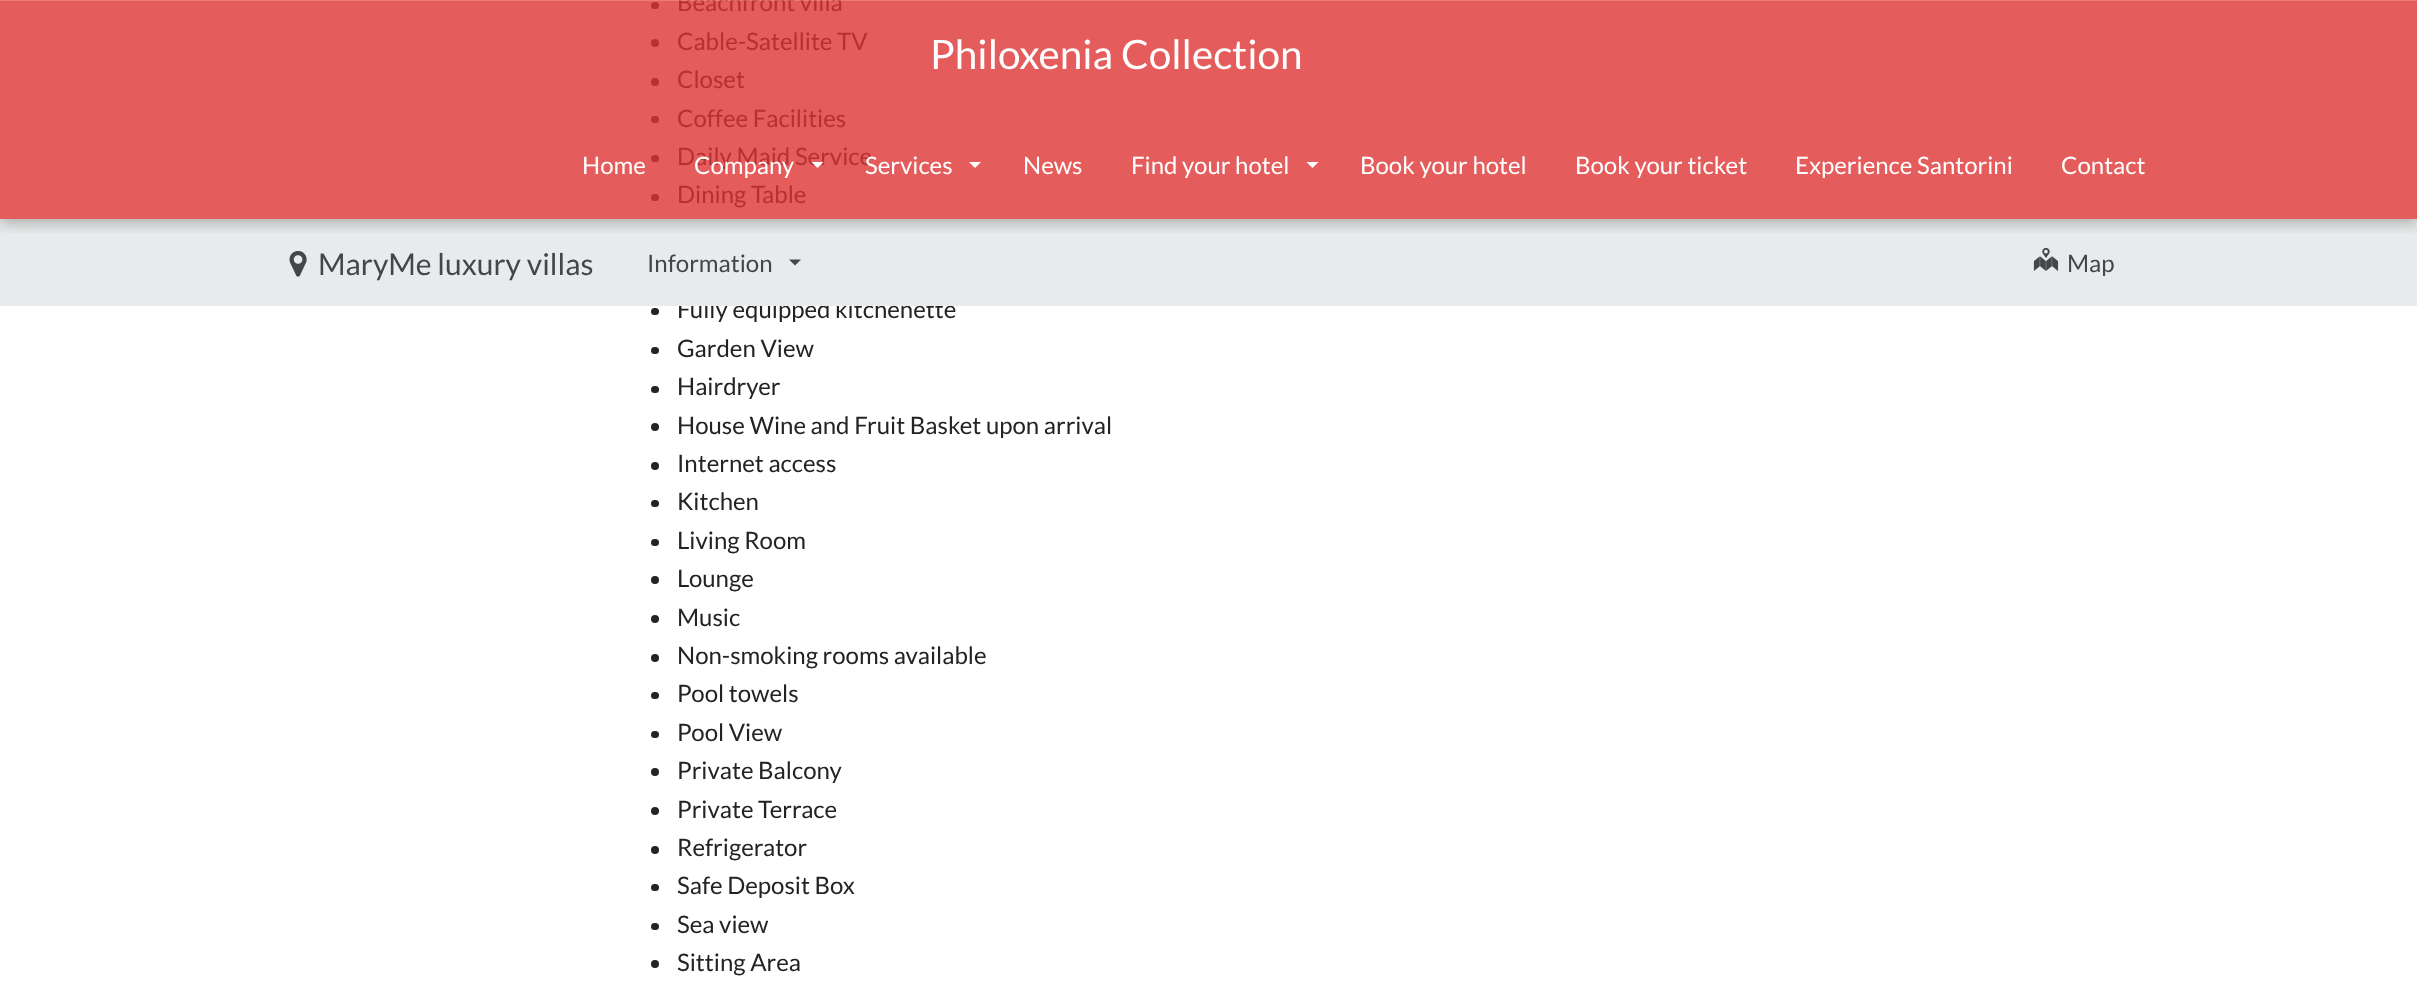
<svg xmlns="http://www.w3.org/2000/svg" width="2417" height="993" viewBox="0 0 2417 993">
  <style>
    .t1 { font: 24px Lato; fill: #b83030; }
    .t2 { font: 24px Lato; fill: #222324; }
    .t3 { font: 40.5px Lato; fill: #fff; }
    .t4 { font: 24px Lato; fill: #fff; }
    .t5 { font: 30px Lato; fill: #444649; }
    .t6 { font: 24px Lato; fill: #444649; }
  </style>
  <defs>
    <clipPath id="clip1"><rect x="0" y="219" width="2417" height="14"/></clipPath>
  </defs>
  <rect width="100%" height="100%" fill="#fff"/>
  <rect x="0" y="0" width="2417" height="219" fill="#e45c5c"/>
  <rect x="651" y="2" width="8" height="7" rx="3.5" fill="#b83030"/>
  <text x="677" y="11" class="t1">Beachfront villa</text>
  <circle cx="655" cy="43" r="4" fill="#b83030"/>
  <text x="677" y="50" class="t1">Cable-Satellite TV</text>
  <circle cx="655" cy="82" r="4" fill="#b83030"/>
  <text x="677" y="88" class="t1">Closet</text>
  <rect x="651" y="116" width="8" height="7" rx="3.5" fill="#b83030"/>
  <text x="677" y="127" class="t1">Coffee Facilities</text>
  <rect x="651" y="155" width="8" height="7" rx="3.5" fill="#b83030"/>
  <text x="677" y="165" class="t1">Daily Maid Service</text>
  <rect x="651" y="194" width="8" height="7" rx="3.5" fill="#b83030"/>
  <text x="677" y="203" class="t1">Dining Table</text>
  <rect x="651" y="308" width="8" height="7" rx="3.5" fill="#222324"/>
  <text x="677" y="318" class="t2">Fully equipped kitchenette</text>
  <rect x="651" y="347" width="8" height="7" rx="3.5" fill="#222324"/>
  <text x="677" y="357" class="t2">Garden View</text>
  <rect x="651" y="386" width="8" height="7" rx="3.5" fill="#222324"/>
  <text x="677" y="395" class="t2">Hairdryer</text>
  <circle cx="655" cy="427" r="4" fill="#222324"/>
  <text x="677" y="434" class="t2">House Wine and Fruit Basket upon arrival</text>
  <circle cx="655" cy="466" r="4" fill="#222324"/>
  <text x="677" y="472" class="t2">Internet access</text>
  <rect x="651" y="500" width="8" height="7" rx="3.5" fill="#222324"/>
  <text x="677" y="510" class="t2">Kitchen</text>
  <rect x="651" y="539" width="8" height="7" rx="3.5" fill="#222324"/>
  <text x="677" y="549" class="t2">Living Room</text>
  <circle cx="655" cy="580" r="4" fill="#222324"/>
  <text x="677" y="587" class="t2">Lounge</text>
  <circle cx="655" cy="619" r="4" fill="#222324"/>
  <text x="677" y="626" class="t2">Music</text>
  <circle cx="655" cy="658" r="4" fill="#222324"/>
  <text x="677" y="664" class="t2">Non-smoking rooms available</text>
  <rect x="651" y="692" width="8" height="7" rx="3.5" fill="#222324"/>
  <text x="677" y="702" class="t2">Pool towels</text>
  <rect x="651" y="731" width="8" height="7" rx="3.5" fill="#222324"/>
  <text x="677" y="741" class="t2">Pool View</text>
  <circle cx="655" cy="772" r="4" fill="#222324"/>
  <text x="677" y="779" class="t2">Private Balcony</text>
  <circle cx="655" cy="811" r="4" fill="#222324"/>
  <text x="677" y="818" class="t2">Private Terrace</text>
  <circle cx="655" cy="850" r="4" fill="#222324"/>
  <text x="677" y="856" class="t2">Refrigerator</text>
  <rect x="651" y="884" width="8" height="7" rx="3.5" fill="#222324"/>
  <text x="677" y="894" class="t2">Safe Deposit Box</text>
  <rect x="651" y="923" width="8" height="7" rx="3.5" fill="#222324"/>
  <text x="677" y="933" class="t2">Sea view</text>
  <circle cx="655" cy="964" r="4" fill="#222324"/>
  <text x="677" y="971" class="t2">Sitting Area</text>
  <rect x="0" y="219" width="2417" height="87" fill="#e9eaeb"/>
  <g clip-path="url(#clip1)">
    <rect x="0" y="-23" width="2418" height="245" fill="#0000004d" filter="blur(7.5px)"/>
  </g>
  <rect x="0" y="0" width="2417" height="1" fill="#ffffff33"/>
  <text x="930" y="69" class="t3">Philoxenia Collection</text>
  <text x="582" y="174" class="t4">Home</text>
  <text x="694" y="174" class="t4">Company</text>
  <path d="M811.5 162H823.5L817.5 168Z" fill="#fff"/>
  <text x="865" y="174" class="t4">Services</text>
  <path d="M969 162H981L975 168Z" fill="#fff"/>
  <text x="1023" y="174" class="t4">News</text>
  <text x="1131" y="174" class="t4">Find your hotel</text>
  <path d="M1306.5 162H1318.5L1312.5 168Z" fill="#fff"/>
  <text x="1360" y="174" class="t4">Book your hotel</text>
  <text x="1575" y="174" class="t4">Book your ticket</text>
  <text x="1795" y="174" class="t4">Experience Santorini</text>
  <text x="2061" y="174" class="t4">Contact</text>
  <image x="289" y="250" width="18" height="27" href="images/1.png"/>
  <text x="318" y="275" class="t5">MaryMe luxury villas</text>
  <text x="647" y="272" class="t6">Information</text>
  <path d="M789 259.5H801L795 265.5Z" fill="#444649"/>
  <image x="2033" y="247" width="26" height="24" href="images/2.png"/>
  <text x="2067" y="272" class="t6">Map</text>
</svg>
